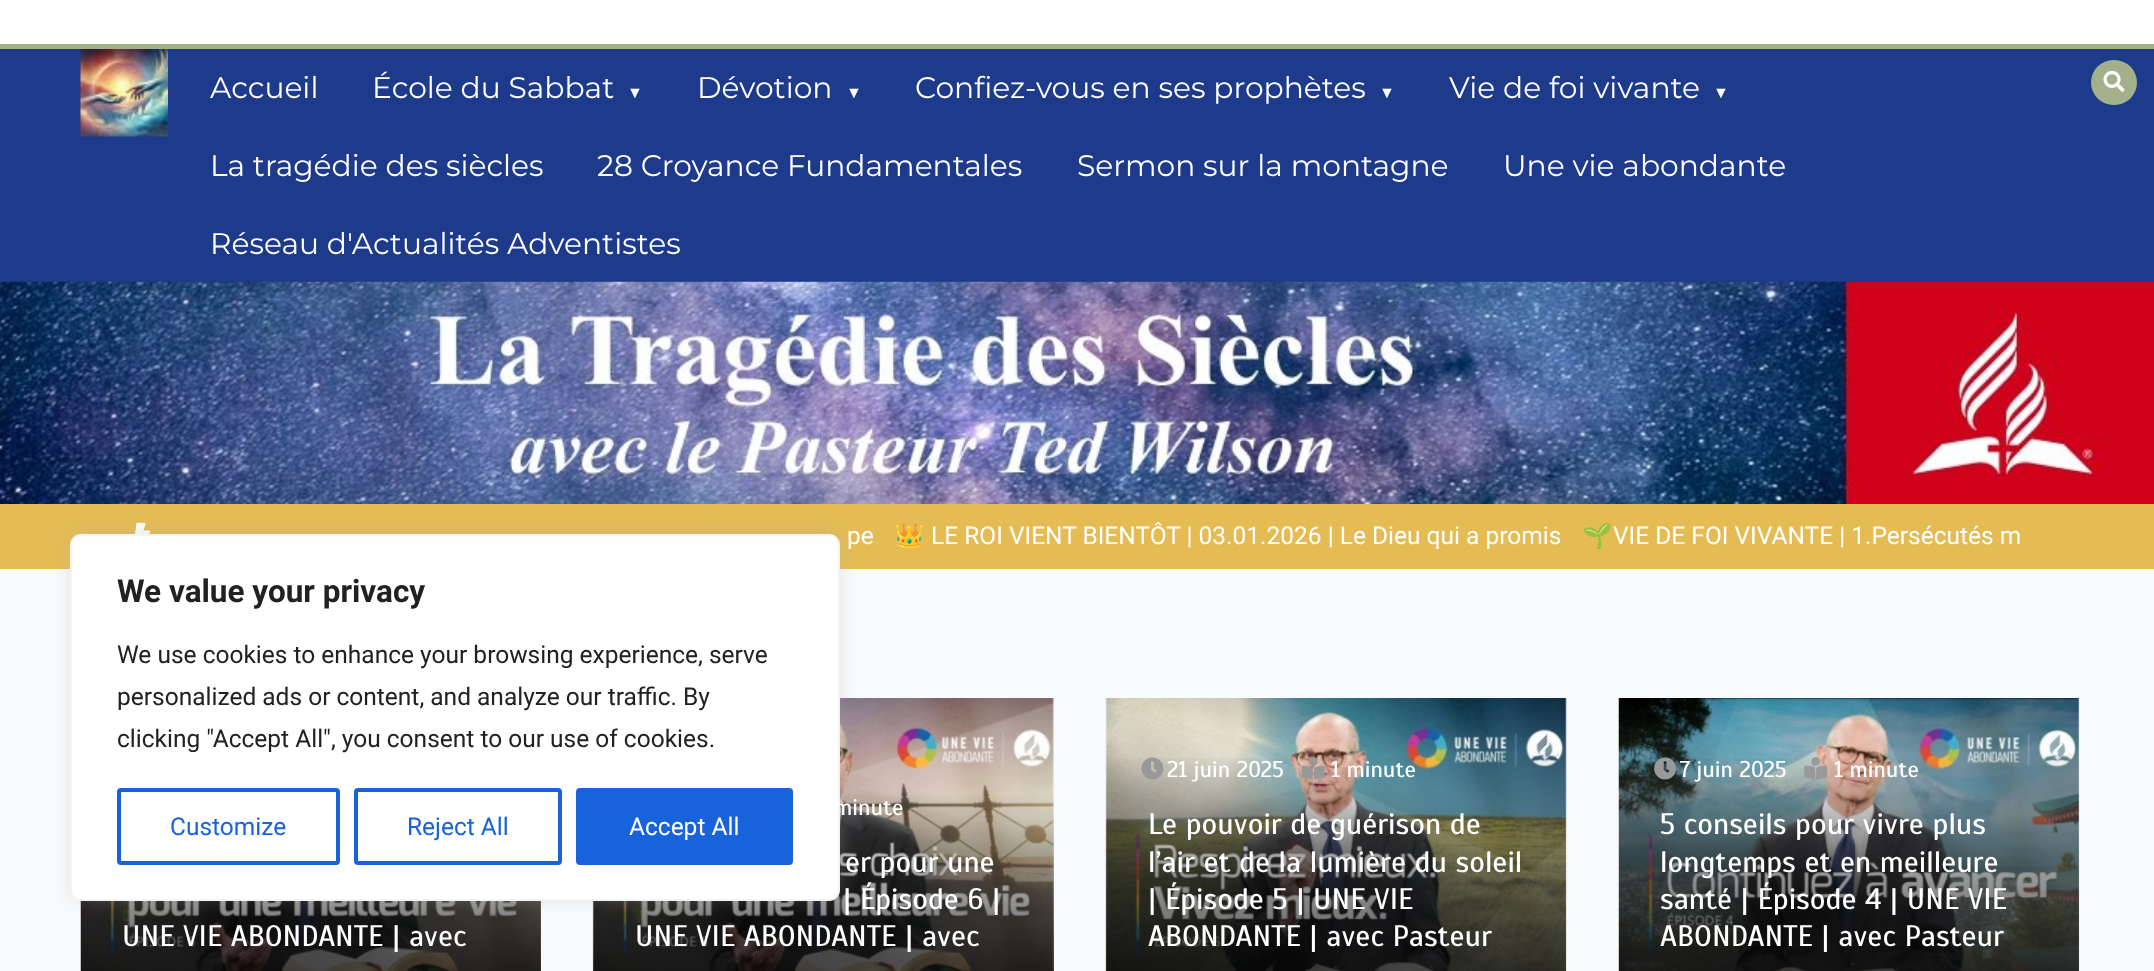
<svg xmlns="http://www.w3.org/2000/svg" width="2154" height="971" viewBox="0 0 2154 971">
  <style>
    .t1 { font: 29.75px Montserrat; fill: #fff; }
    .t2 { font: 16px Liberation Serif; fill: #fff; }
    .t3 { font: 24.5px Roboto; fill: #fff; }
    .t4 { font: 24.5px Noto Color Emoji; fill: #fff; }
    .t5 { font: bold 31.5px Roboto; fill: #212121; }
    .t6 { font: 24.5px Roboto; fill: #212121; }
    .t7 { font: 24.5px Roboto; fill: #1863dc; }
    .t8 { font: 29.75px Scada; fill: #fff; }
    .t9 { font: 22.75px Scada; fill: #fff; }
  </style>
  <defs>
    <linearGradient id="g1" gradientUnits="userSpaceOnUse" x1="311" y1="789" x2="311" y2="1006"><stop offset="0" stop-color="#000" stop-opacity="0"/><stop offset="1" stop-color="#000" stop-opacity="0.8"/></linearGradient>
    <linearGradient id="g2" gradientUnits="userSpaceOnUse" x1="823" y1="789" x2="823" y2="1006"><stop offset="0" stop-color="#000" stop-opacity="0"/><stop offset="1" stop-color="#000" stop-opacity="0.8"/></linearGradient>
    <linearGradient id="g3" gradientUnits="userSpaceOnUse" x1="1336" y1="751" x2="1336" y2="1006"><stop offset="0" stop-color="#000" stop-opacity="0"/><stop offset="1" stop-color="#000" stop-opacity="0.8"/></linearGradient>
    <linearGradient id="g4" gradientUnits="userSpaceOnUse" x1="1849" y1="751" x2="1849" y2="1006"><stop offset="0" stop-color="#000" stop-opacity="0"/><stop offset="1" stop-color="#000" stop-opacity="0.8"/></linearGradient>
  </defs>
  <rect width="100%" height="100%" fill="#f8fafc"/>
  <rect x="0" y="0" width="2154" height="44" fill="#fff"/>
  <rect x="0" y="49" width="2154" height="233" fill="#1e3a8a"/>
  <rect x="0" y="44" width="2154" height="5" fill="#a3b18a"/>
  <image x="80" y="49" width="88" height="88" href="images/1.png"/>
  <text x="210" y="98" class="t1">Accueil</text>
  <text x="372" y="98" class="t1">École du Sabbat</text>
  <text x="627" y="98" class="t2">▼</text>
  <text x="697" y="98" class="t1">Dévotion</text>
  <text x="846" y="98" class="t2">▼</text>
  <text x="915" y="98" class="t1">Confiez-vous en ses prophètes</text>
  <text x="1379" y="98" class="t2">▼</text>
  <text x="1449" y="98" class="t1">Vie de foi vivante</text>
  <text x="1713" y="98" class="t2">▼</text>
  <text x="210" y="176" class="t1">La tragédie des siècles</text>
  <text x="597" y="176" class="t1">28 Croyance Fundamentales</text>
  <text x="1077" y="176" class="t1">Sermon sur la montagne</text>
  <text x="1503" y="176" class="t1">Une vie abondante</text>
  <text x="210" y="254" class="t1">Réseau d'Actualités Adventistes</text>
  <rect x="2091" y="60" width="46" height="45" rx="22.5" fill="#a3b18a"/>
  <image x="2103" y="70" width="22" height="22" href="images/2.png"/>
  <image x="0" y="281" width="2154" height="223" href="images/3.png"/>
  <rect x="0" y="504" width="2154" height="65" fill="#e5bc54"/>
  <image x="135" y="522" width="16" height="12" href="images/4.png"/>
  <text x="847" y="544" class="t3">pe</text>
  <text x="894" y="544" class="t4">👑</text>
  <text x="931" y="544" class="t3">LE ROI VIENT BIENTÔT | 03.01.2026 | Le Dieu qui a promis</text>
  <text x="1582" y="544" class="t4">🌱</text>
  <text x="1613" y="544" class="t3">VIE DE FOI VIVANTE | 1.Persécutés m</text>
  <image x="80" y="900" width="461" height="71" href="images/5.png"/>
  <rect x="81" y="901" width="460" height="70" fill="url(#g1)"/>
  <image x="592" y="698" width="462" height="273" href="images/6.png"/>
  <rect x="593" y="795" width="461" height="176" fill="url(#g2)"/>
  <rect x="70" y="532" width="770" height="368" rx="11" fill="#acabab4d" filter="blur(9px)"/>
  <rect x="71" y="535" width="768" height="365" rx="10" fill="#fff" stroke="#f4f4f4" stroke-width="2"/>
  <text x="117" y="602" class="t5">We value your privacy</text>
  <text x="117" y="663" class="t6">We use cookies to enhance your browsing experience, serve</text>
  <text x="117" y="705" class="t6">personalized ads or content, and analyze our traffic. By</text>
  <text x="117" y="747" class="t6">clicking "Accept All", you consent to our use of cookies.</text>
  <rect x="119" y="790" width="219" height="73" rx="2" fill="none" stroke="#1863dc" stroke-width="4"/>
  <text x="170" y="835" class="t7">Customize</text>
  <rect x="356" y="790" width="204" height="73" rx="2" fill="none" stroke="#1863dc" stroke-width="4"/>
  <text x="407" y="835" class="t7">Reject All</text>
  <rect x="578" y="790" width="213" height="73" rx="2" fill="#1863dc" stroke="#1863dc" stroke-width="4"/>
  <text x="629" y="835" class="t3">Accept All</text>
  <text x="122" y="946" class="t8">UNE VIE ABONDANTE | avec</text>
  <text x="834" y="815" class="t9">minute</text>
  <text x="845" y="872" class="t8">er pour une</text>
  <text x="843" y="909" class="t8">| Épisode 6 |</text>
  <text x="635" y="946" class="t8">UNE VIE ABONDANTE | avec</text>
  <image x="1105" y="698" width="462" height="273" href="images/7.png"/>
  <rect x="1106" y="758" width="460" height="213" fill="url(#g3)"/>
  <image x="1141" y="757" width="23" height="23" href="images/8.png"/>
  <text x="1167" y="777" class="t9">21 juin 2025</text>
  <image x="1302" y="757" width="23" height="23" href="images/9.png"/>
  <text x="1331" y="777" class="t9">1 minute</text>
  <text x="1148" y="834" class="t8">Le pouvoir de guérison de</text>
  <text x="1148" y="872" class="t8">l’air et de la lumière du soleil</text>
  <text x="1148" y="909" class="t8">| Épisode 5 | UNE VIE</text>
  <text x="1148" y="946" class="t8">ABONDANTE | avec Pasteur</text>
  <image x="1618" y="698" width="462" height="273" href="images/10.png"/>
  <rect x="1619" y="758" width="460" height="213" fill="url(#g4)"/>
  <image x="1654" y="757" width="23" height="23" href="images/11.png"/>
  <text x="1680" y="777" class="t9">7 juin 2025</text>
  <image x="1804" y="757" width="23" height="23" href="images/12.png"/>
  <text x="1834" y="777" class="t9">1 minute</text>
  <text x="1660" y="834" class="t8">5 conseils pour vivre plus</text>
  <text x="1660" y="872" class="t8">longtemps et en meilleure</text>
  <text x="1660" y="909" class="t8">santé | Épisode 4 | UNE VIE</text>
  <text x="1660" y="946" class="t8">ABONDANTE | avec Pasteur</text>
</svg>
